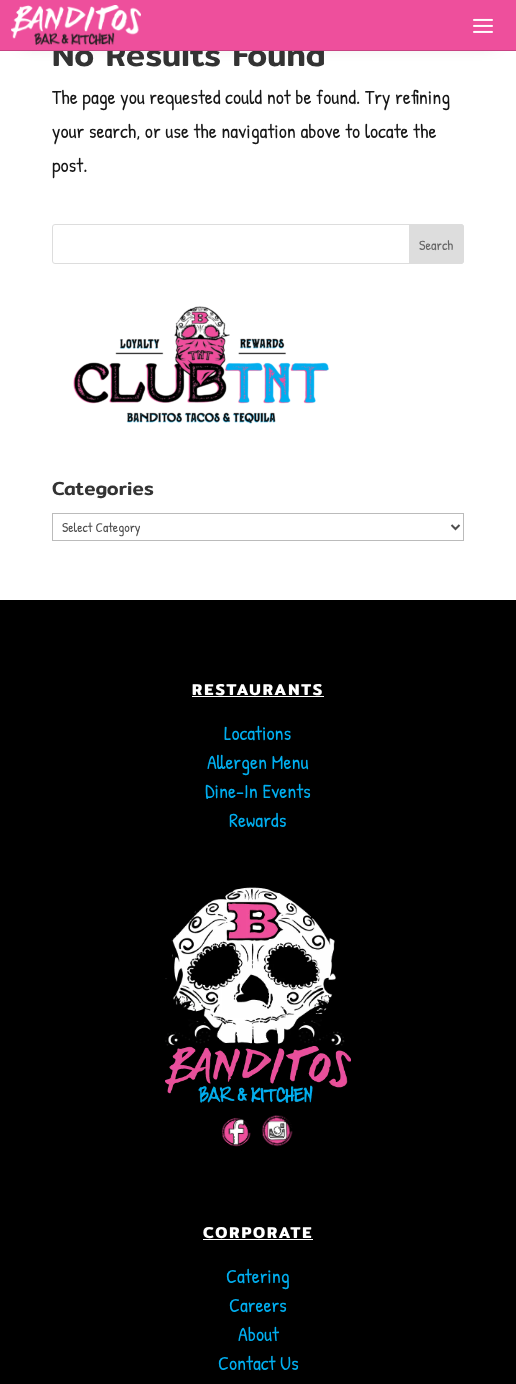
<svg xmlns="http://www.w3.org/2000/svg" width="516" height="1384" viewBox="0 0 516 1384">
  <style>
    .t1 { font: 500 32px Mitr; fill: #333; }
    .t2 { font: 20px Patrick Hand; fill: #161616; }
    .t3 { font: 14px Patrick Hand; fill: #666; }
    .t4 { font: 500 19px Mitr; fill: #333; }
    .t5 { font: 13.5px Patrick Hand; fill: #4e4e4e; }
    .t6 { font: 600 16px Mitr; letter-spacing: 2px; fill: #fff; }
    .t7 { font: 20px Patrick Hand; fill: #00aeef; }
  </style>
  <rect width="100%" height="100%" fill="#fff"/>
  <rect x="22" y="34" width="472" height="7" fill="#0000004d" filter="blur(9px)"/>
  <text x="52" y="66" class="t1">No Results Found</text>
  <rect x="0" y="0" width="516" height="50" fill="#ee4f9c"/>
  <rect x="0" y="50" width="516" height="1" fill="#c84283"/>
  <image x="11" y="5" width="130" height="40" href="images/1.png"/>
  <image x="473" y="18" width="20" height="15" href="images/2.png"/>
  <text x="52" y="104" class="t2">The page you requested could not be found. Try refining</text>
  <text x="52" y="138" class="t2">your search, or use the navigation above to locate the</text>
  <text x="52" y="172" class="t2">post.</text>
  <rect x="52.5" y="224.5" width="411" height="39" rx="2.5" fill="none" stroke="#ddd"/>
  <path d="M409.5 224.5H461C462.5 224.5 463.5 225.5 463.5 227V261C463.5 262.5 462.5 263.5 461 263.5H409.5Z" fill="#ddd" stroke="#ddd"/>
  <text x="419" y="250" class="t3">Search</text>
  <image x="73" y="306" width="256" height="118" href="images/3.png"/>
  <text x="52" y="495" class="t4">Categories</text>
  <rect x="52.5" y="513.5" width="411" height="27" fill="none" stroke="#bbb"/>
  <path d="M451.5 525L455.5 529L459.5 525" fill="none" stroke="#4e4e4e" stroke-width="2"/>
  <text x="62" y="532" class="t5">Select Category</text>
  <rect x="0" y="600" width="516" height="784" fill="#000"/>
  <text x="192" y="695" class="t6">RESTAURANTS</text>
  <rect x="192" y="696" width="132" height="1" fill="#fff"/>
  <text x="224" y="740" class="t7">Locations</text>
  <text x="207" y="769" class="t7">Allergen Menu</text>
  <text x="205" y="798" class="t7">Dine-In Events</text>
  <text x="229" y="827" class="t7">Rewards</text>
  <image x="165" y="887" width="180" height="159" href="images/4.png"/>
  <image x="165" y="1046" width="186" height="57" href="images/5.png"/>
  <image x="221" y="1117" width="30" height="30" href="images/6.png"/>
  <image x="261" y="1115" width="32" height="32" href="images/7.png"/>
  <text x="203" y="1238" class="t6">CORPORATE</text>
  <rect x="203" y="1239" width="110" height="1" fill="#fff"/>
  <text x="226" y="1283" class="t7">Catering</text>
  <text x="229" y="1312" class="t7">Careers</text>
  <text x="238" y="1341" class="t7">About</text>
  <text x="218" y="1370" class="t7">Contact Us</text>
</svg>
